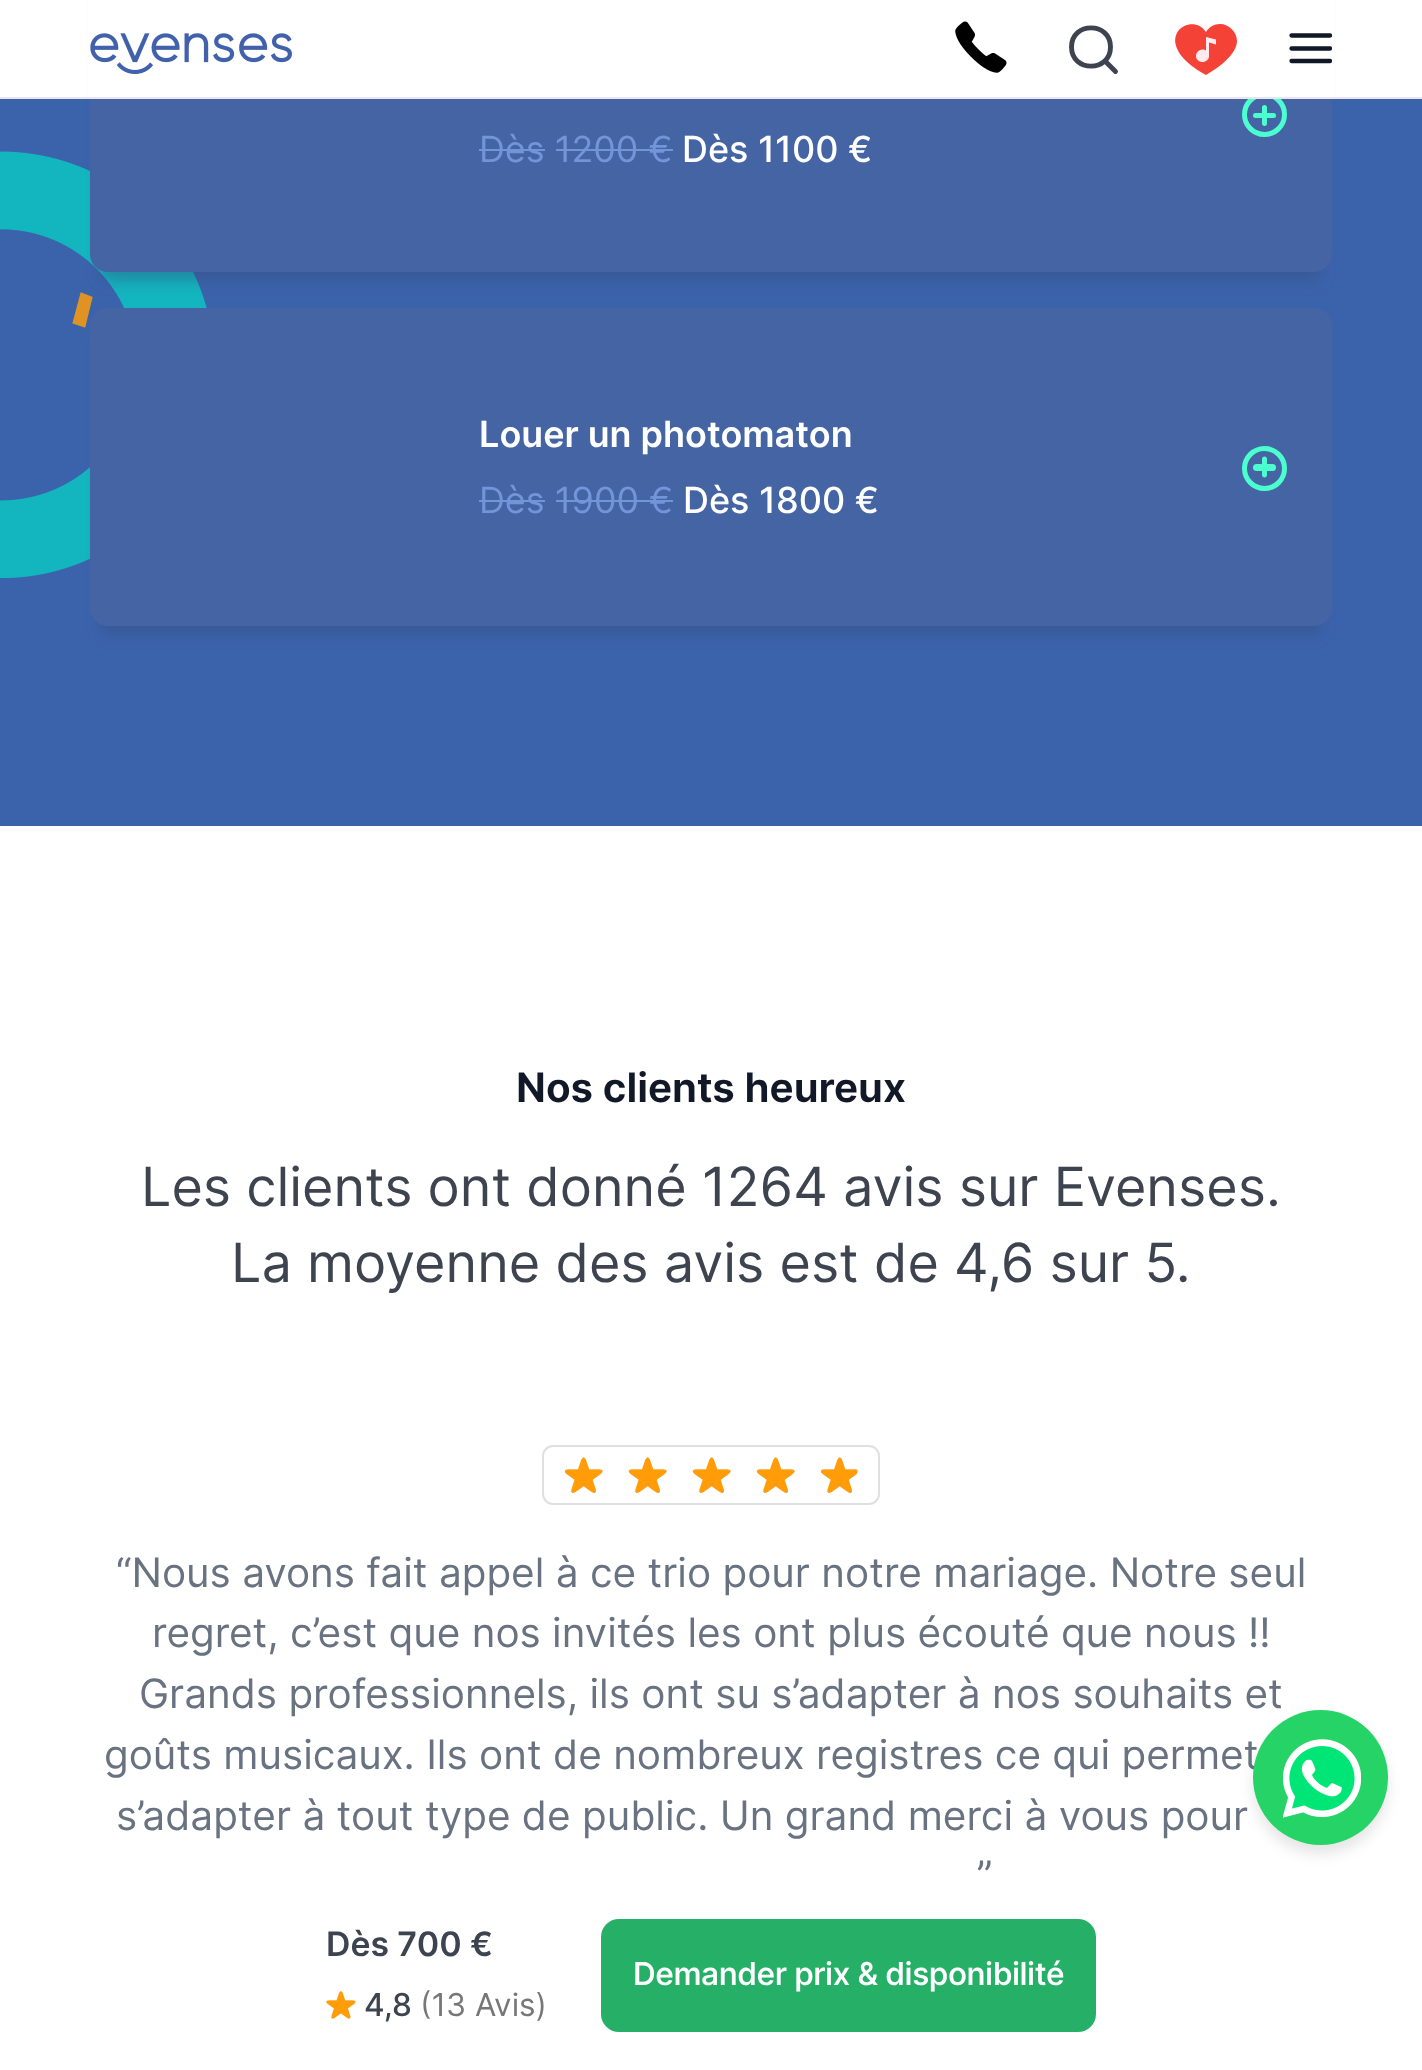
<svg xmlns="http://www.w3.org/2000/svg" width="1422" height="2070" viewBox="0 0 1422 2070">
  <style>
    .t1 { font: 36px Inter; fill: #7394d9; }
    .t2 { font: 500 36px Inter; fill: #fff; }
    .t3 { font: 600 36px Inter; fill: #fff; }
    .t4 { font: 600 33.75px Inter; fill: #3d434f; }
    .t5 { font: 500 31.5px Inter; fill: #3d434f; }
    .t6 { font: 31.5px Inter; fill: #777; }
    .t7 { font: 500 31.5px 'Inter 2'; letter-spacing: -0.45px; fill: #fff; }
    .t8 { font: 600 40.5px 'Inter 2'; fill: #111827; }
    .t9 { font: 54px Inter; fill: #3d434f; }
    .t10 { font: 40.5px Inter; fill: #687280; }
  </style>
  <defs>
    <clipPath id="clip1"><rect x="1289" y="27" width="43" height="43"/></clipPath>
  </defs>
  <rect width="100%" height="100%" fill="#fff"/>
  <rect x="0" y="99" width="1422" height="727" fill="#3b63ac"/>
  <image x="0" y="151" width="207" height="427" href="images/3.png"/>
  <rect x="101" y="-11" width="1220" height="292" rx="7" fill="#344a7966" filter="blur(7px)"/>
  <rect x="90" y="-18" width="1242" height="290" rx="18" fill="#4564a4"/>
  <circle cx="1264.5" cy="114.5" r="20" fill="none" stroke="#4cffce" stroke-width="5"/>
  <rect x="88" y="0" width="1246" height="97" fill="#fff"/>
  <rect x="0" y="97" width="1422" height="2" fill="#e9e6ec"/>
  <image x="90" y="33" width="202" height="41" href="images/1.png"/>
  <image x="955" y="21" width="52" height="52" href="images/2.png"/>
  <path d="M1115.5 71.5L1105 61M1110.5 47C1110.5 72.5 1071.5 72.5 1071.5 47C1071.5 21.5 1110.5 21.5 1110.5 47Z" fill="none" stroke="#3d434f" stroke-width="4.9" stroke-linecap="round" stroke-linejoin="round"/>
  <path d="M1220 24C1214 24 1209 27 1206 32C1191 9 1145 41 1206 75C1206 75 1237 58 1237 41C1237 32 1229 24 1220 24" fill="#f44336"/>
  <path d="M1206 37V50.5C1205 50 1204 49.5 1202.5 49.5C1199 49.5 1196 52.5 1196 56C1196 59.5 1199 62 1202.5 62C1206 62 1209 59.5 1209 56V42.5L1216 44.5V39.5Z" fill="#ffebee"/>
  <g clip-path="url(#clip1)">
    <path d="M1291.5 48.5H1330M1291.5 35.5H1330M1291.5 61H1330" fill="none" stroke="#111827" stroke-width="4.3" stroke-linecap="round" stroke-linejoin="round"/>
  </g>
  <rect x="1253" y="113" width="23" height="5" rx="2.5" fill="#4cffce"/>
  <path d="M1267 107.5V123.5C1267 125 1266 126 1264.5 126C1263 126 1262 125 1262 123.5V107.5C1262 106 1263 105 1264.5 105C1266 105 1267 106 1267 107.5Z" fill="#4cffce"/>
  <text x="479" y="162" class="t1">Dès 1200 €</text>
  <rect x="479" y="149" width="66" height="2" fill="#7394d9"/>
  <rect x="556" y="149" width="117" height="2" fill="#7394d9"/>
  <text x="682" y="162" class="t2">Dès 1100 €</text>
  <rect x="101" y="340" width="1220" height="295" rx="7" fill="#344a7966" filter="blur(7px)"/>
  <rect x="90" y="308" width="1242" height="318" rx="18" fill="#4564a4"/>
  <text x="479" y="447" class="t3">Louer un photomaton</text>
  <text x="479" y="513" class="t1">Dès 1900 €</text>
  <rect x="479" y="500" width="66" height="2" fill="#7394d9"/>
  <rect x="556" y="500" width="117" height="2" fill="#7394d9"/>
  <text x="683" y="513" class="t2">Dès 1800 €</text>
  <circle cx="1264.5" cy="468.5" r="20" fill="none" stroke="#4cffce" stroke-width="5"/>
  <rect x="1253" y="464" width="23" height="7" rx="3.5" fill="#4cffce"/>
  <path d="M1267 459V475C1267 476.5 1266 477.5 1264.5 477.5C1263 477.5 1262 476.5 1262 475V459C1262 457.5 1263 456.5 1264.5 456.5C1266 456.5 1267 457.5 1267 459Z" fill="#4cffce"/>
  <text x="326" y="1956" class="t4">Dès 700 €</text>
  <image x="326" y="1991" width="30" height="28" href="images/4.png"/>
  <text x="364" y="2016" class="t5">4,8</text>
  <text x="420" y="2016" class="t6">(13 Avis)</text>
  <rect x="601" y="1919" width="495" height="113" rx="18" fill="#26b067"/>
  <text x="633" y="1985" class="t7">Demander prix &amp; disponibilité</text>
  <text x="516" y="1102" class="t8">Nos clients heureux</text>
  <text x="141" y="1206" class="t9">Les clients ont donné 1264 avis sur Evenses.</text>
  <text x="231" y="1282" class="t9">La moyenne des avis est de 4,6 sur 5.</text>
  <rect x="543" y="1446" width="336" height="58" rx="10" fill="none" stroke="#e0e0e0" stroke-width="2"/>
  <image x="564" y="1457" width="295" height="36" href="images/5.png"/>
  <image x="565" y="1457" width="292" height="36" href="images/6.png"/>
  <text x="116" y="1587" class="t10">“Nous avons fait appel à ce trio pour notre mariage. Notre seul</text>
  <text x="152" y="1647" class="t10">regret, c’est que nos invités les ont plus écouté que nous !!</text>
  <text x="139" y="1708" class="t10">Grands professionnels, ils ont su s’adapter à nos souhaits et</text>
  <text x="104" y="1769" class="t10">goûts musicaux. Ils ont de nombreux registres ce qui permet</text>
  <text x="116" y="1830" class="t10">s’adapter à tout type de public. Un grand merci à vous pour</text>
  <text x="977" y="1890" class="t10">”</text>
  <rect x="1253" y="1719" width="135" height="135" rx="67.5" fill="#0000001a" filter="blur(7px)"/>
  <circle cx="1320.5" cy="1777.5" r="67.5" fill="#25d366"/>
  <image x="1283" y="1739" width="78" height="79" href="images/7.png"/>
</svg>
